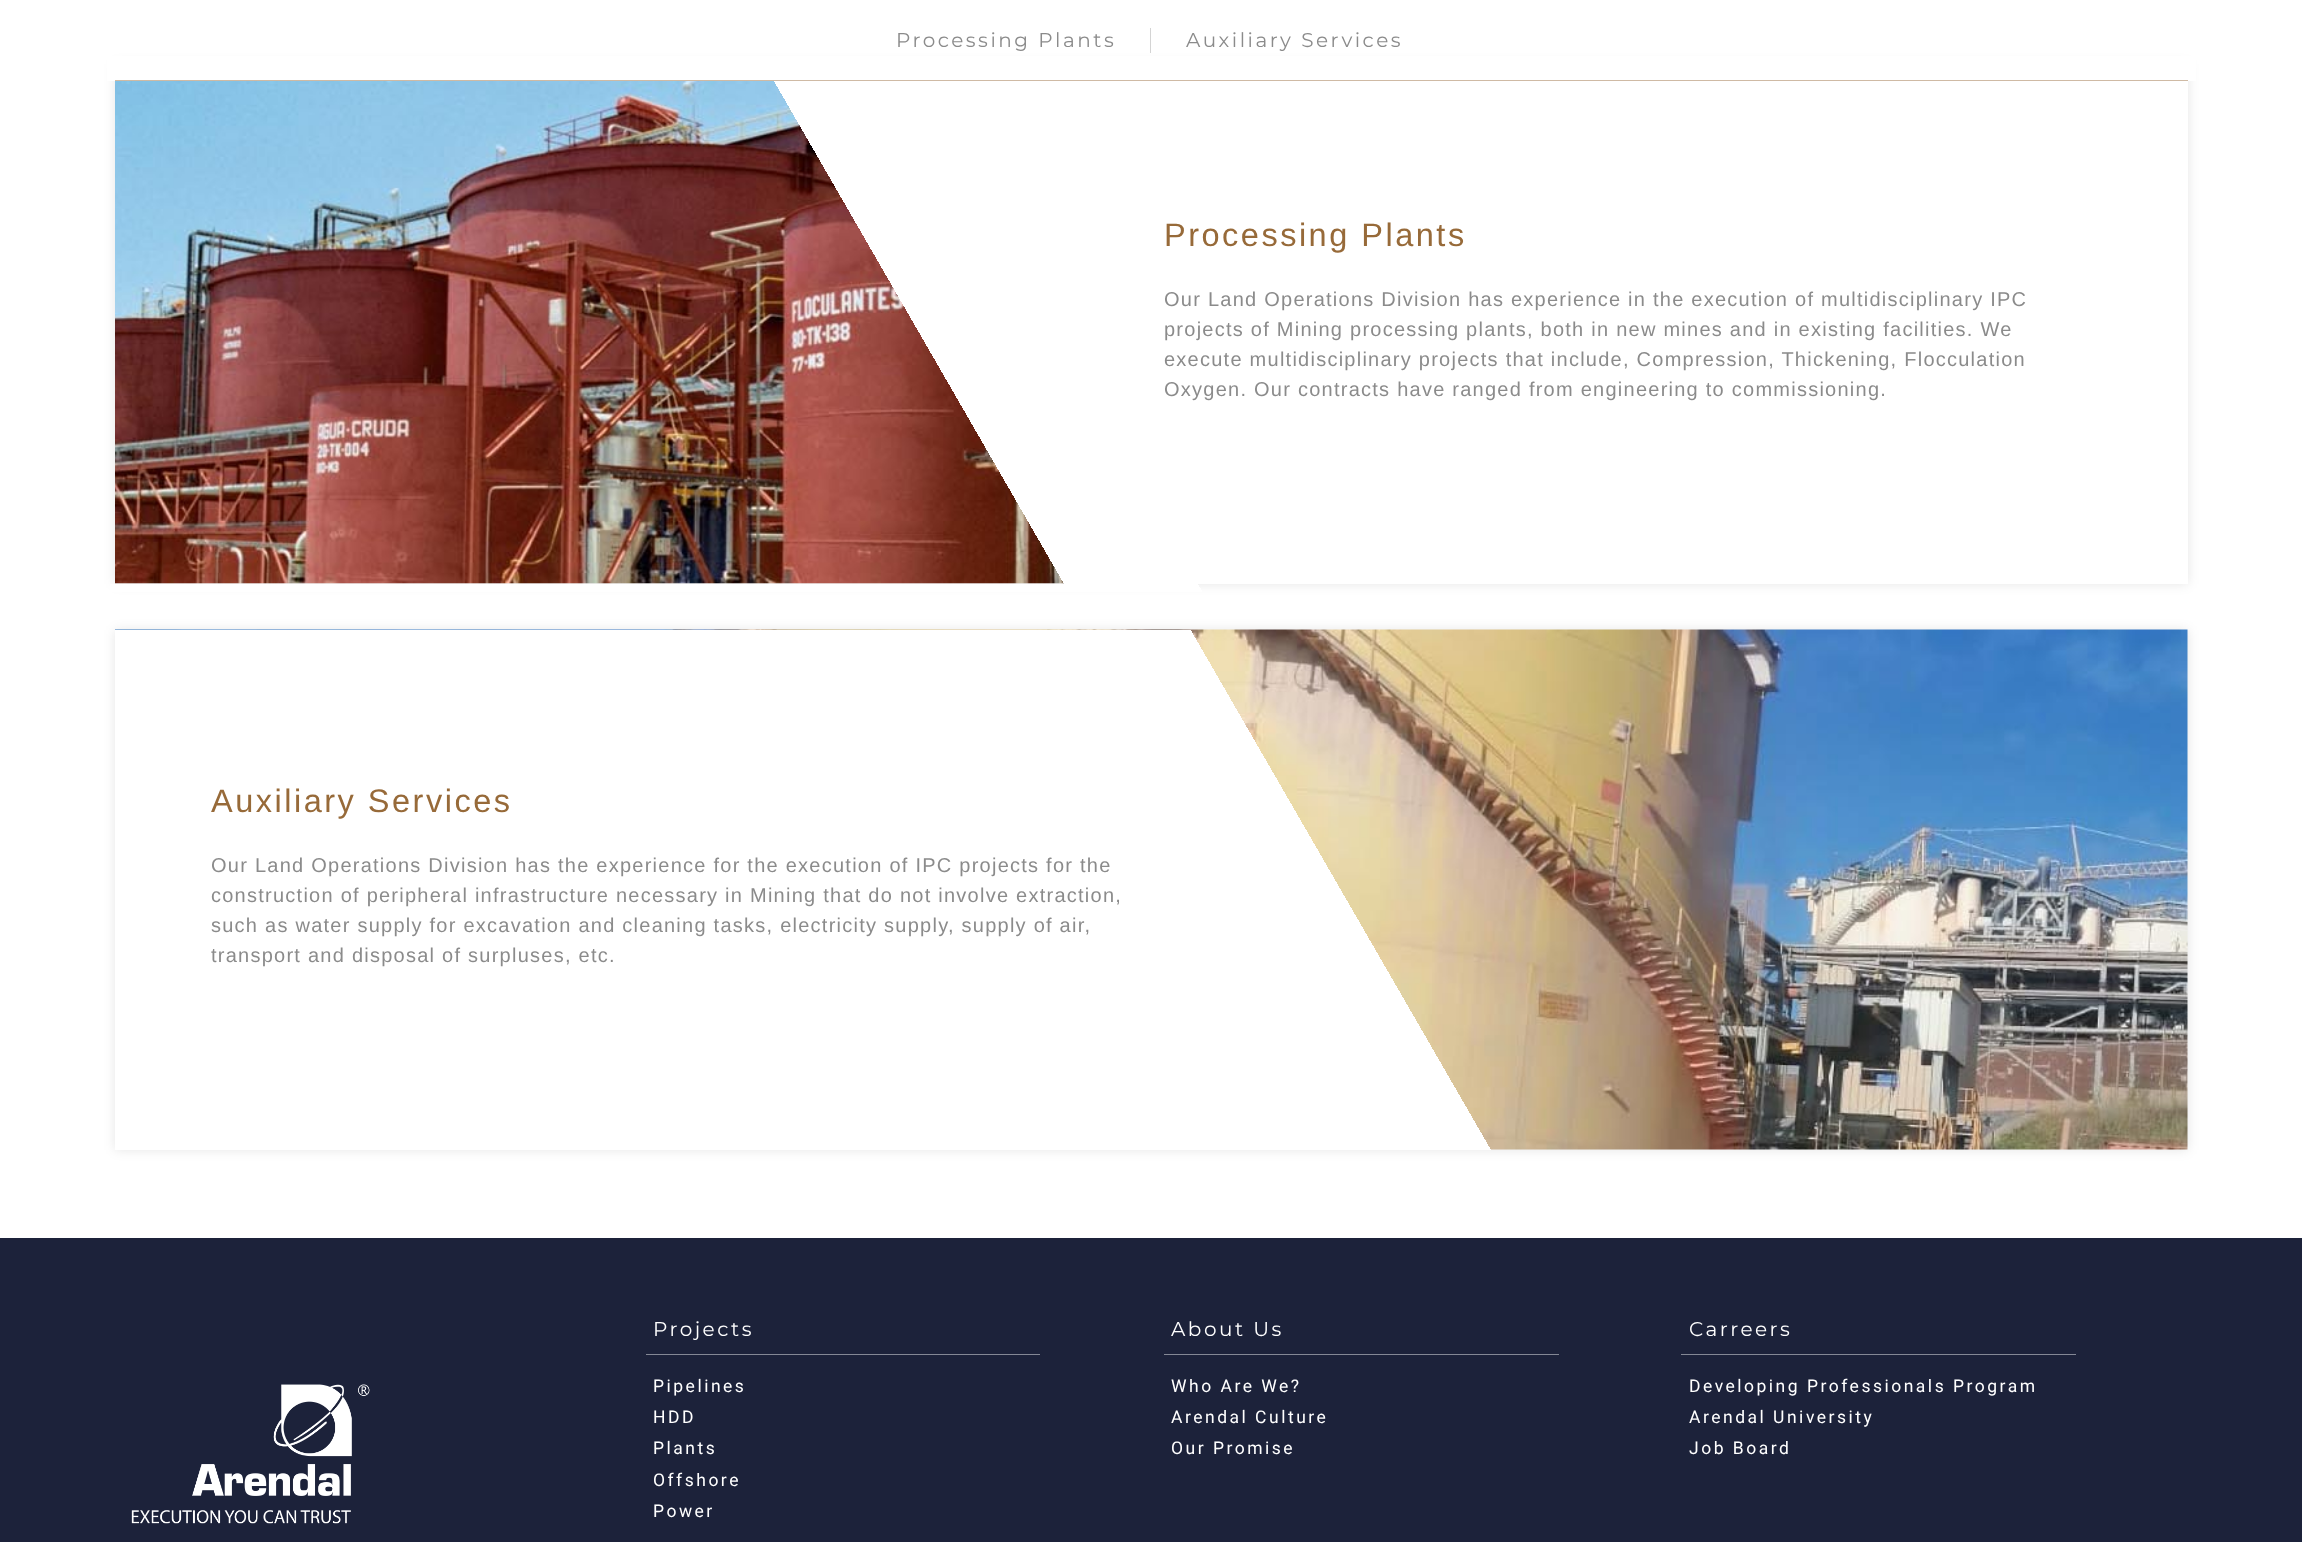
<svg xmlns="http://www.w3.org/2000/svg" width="2302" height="1542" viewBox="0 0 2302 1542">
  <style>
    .t1 { font: 20px Montserrat; letter-spacing: 2.5px; fill: #8b8b8b; }
    .t2 { font: 32.5px Liberation Sans; letter-spacing: 2.5px; fill: #976a39; }
    .t3 { font: 20px Liberation Sans; letter-spacing: 1.25px; fill: #8b8b8b; }
    .t4 { font: 20px Montserrat; letter-spacing: 2.5px; fill: #fff; }
    .t5 { font: 17.5px Roboto; letter-spacing: 2.5px; fill: #fff; }
  </style>
  <defs>
    <linearGradient id="g1" gradientUnits="userSpaceOnUse" x1="261" y1="837" x2="2041" y2="-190"><stop offset="0.4" stop-color="#fff" stop-opacity="0"/><stop offset="0.4" stop-color="#fff"/></linearGradient>
    <linearGradient id="g2" gradientUnits="userSpaceOnUse" x1="165" y1="1436" x2="2137" y2="298"><stop offset="0.58" stop-color="#fff"/><stop offset="0.58" stop-color="#fff" stop-opacity="0"/></linearGradient>
    <linearGradient id="g3" gradientUnits="userSpaceOnUse" x1="261" y1="1404" x2="2041" y2="376"><stop offset="0.58" stop-color="#fff"/><stop offset="0.58" stop-color="#fff" stop-opacity="0"/></linearGradient>
  </defs>
  <rect width="100%" height="100%" fill="#fff"/>
  <rect x="115" y="64" width="2073" height="520" fill="#0000001a" filter="blur(6px)"/>
  <rect x="107" y="56" width="2089" height="25" fill="#fff"/>
  <rect x="115" y="80" width="2073" height="1" fill="#cfbaa4"/>
  <text x="896" y="47" class="t1">Processing Plants</text>
  <rect x="1150" y="28" width="1" height="25" fill="#d4d4d4"/>
  <text x="1186" y="47" class="t1">Auxiliary Services</text>
  <image x="115" y="81" width="949" height="503" href="images/1.png"/>
  <rect x="774" y="81" width="1414" height="503" fill="url(#g1)"/>
  <text x="1164" y="246" class="t2">Processing Plants</text>
  <text x="1164" y="306" class="t3">Our Land Operations Division has experience in the execution of multidisciplinary IPC</text>
  <text x="1164" y="336" class="t3">projects of Mining processing plants, both in new mines and in existing facilities. We</text>
  <text x="1164" y="366" class="t3">execute multidisciplinary projects that include, Compression, Thickening, Flocculation</text>
  <text x="1164" y="396" class="t3">Oxygen. Our contracts have ranged from engineering to commissioning.</text>
  <rect x="110" y="584" width="1092" height="8" fill="url(#g2)"/>
  <rect x="115" y="630" width="2073" height="520" fill="#0000001a" filter="blur(6px)"/>
  <image x="115" y="629" width="2073" height="521" href="images/2.png"/>
  <rect x="115" y="630" width="1376" height="520" fill="url(#g3)"/>
  <text x="211" y="812" class="t2">Auxiliary Services</text>
  <text x="211" y="872" class="t3">Our Land Operations Division has the experience for the execution of IPC projects for the</text>
  <text x="211" y="902" class="t3">construction of peripheral infrastructure necessary in Mining that do not involve extraction,</text>
  <text x="211" y="932" class="t3">such as water supply for excavation and cleaning tasks, electricity supply, supply of air,</text>
  <text x="211" y="962" class="t3">transport and disposal of surpluses, etc.</text>
  <rect x="0" y="1238" width="2302" height="304" fill="#1c223a"/>
  <image x="131" y="1384" width="239" height="140" href="images/3.png"/>
  <text x="653" y="1336" class="t4">Projects</text>
  <rect x="646" y="1354" width="394" height="1" fill="#848895"/>
  <text x="653" y="1392" class="t5">Pipelines</text>
  <text x="653" y="1423" class="t5">HDD</text>
  <text x="653" y="1454" class="t5">Plants</text>
  <text x="653" y="1486" class="t5">Offshore</text>
  <text x="653" y="1517" class="t5">Power</text>
  <text x="1171" y="1336" class="t4">About Us</text>
  <rect x="1164" y="1354" width="395" height="1" fill="#848895"/>
  <text x="1171" y="1392" class="t5">Who Are We?</text>
  <text x="1171" y="1423" class="t5">Arendal Culture</text>
  <text x="1171" y="1454" class="t5">Our Promise</text>
  <text x="1689" y="1336" class="t4">Carreers</text>
  <rect x="1681" y="1354" width="395" height="1" fill="#848895"/>
  <text x="1689" y="1392" class="t5">Developing Professionals Program</text>
  <text x="1689" y="1423" class="t5">Arendal University</text>
  <text x="1689" y="1454" class="t5">Job Board</text>
</svg>
